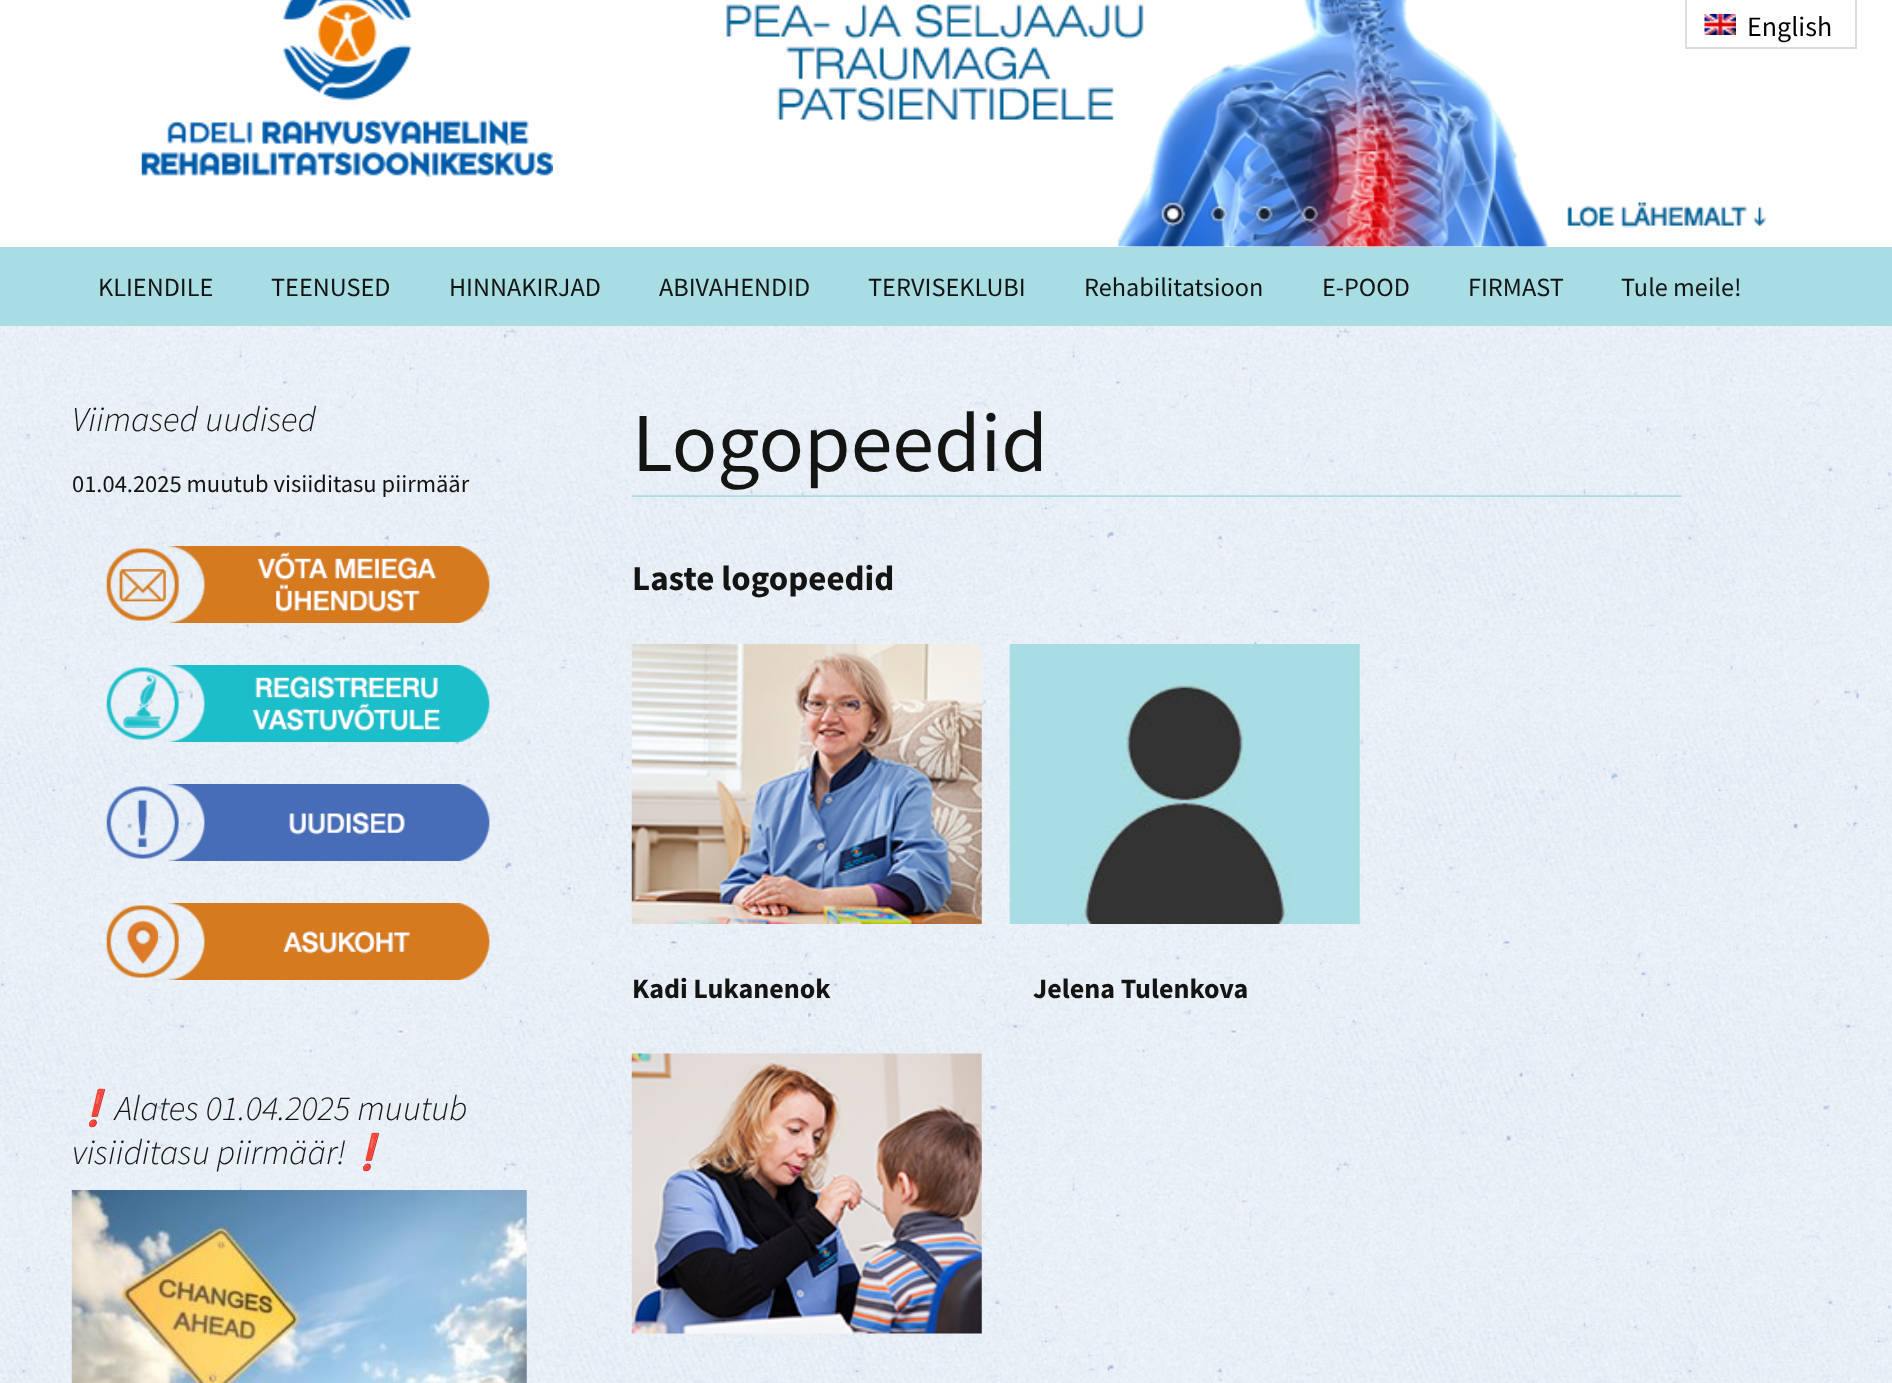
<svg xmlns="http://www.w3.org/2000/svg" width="1892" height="1383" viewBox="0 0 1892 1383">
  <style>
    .t1 { font: 28px Source Sans Pro; fill: #000; }
    .t2 { font: 26.25px Source Sans Pro; fill: #141412; }
    .t3 { font: italic 300 35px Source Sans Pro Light; fill: #141412; }
    .t4 { font: 24.5px Source Sans Pro; fill: #141412; }
    .t5 { font: italic 35px Noto Color Emoji; fill: #141412; }
    .t6 { font: 84px Source Sans Pro; fill: #141412; }
    .t7 { font: bold 35px Source Sans Pro; fill: #141412; }
    .t8 { font: bold 28px Source Sans Pro; fill: #141412; }
  </style>
  <rect width="100%" height="100%" fill="#fff"/>
  <image x="0" y="326" width="1892" height="1057" href="images/1.png"/>
  <image x="141" y="0" width="412" height="177" href="images/2.png"/>
  <image x="726" y="0" width="1040" height="247" href="images/3.png"/>
  <image x="1157" y="198" width="31" height="31" href="images/4.png"/>
  <image x="1208" y="203" width="22" height="22" href="images/5.png"/>
  <image x="1254" y="203" width="21" height="22" href="images/6.png"/>
  <image x="1299" y="204" width="21" height="20" href="images/7.png"/>
  <rect x="1855" y="0" width="2" height="49" fill="#ddd"/>
  <rect x="1685" y="0" width="2" height="49" fill="#ddd"/>
  <rect x="1687" y="47" width="168" height="2" fill="#ddd"/>
  <image x="1704" y="14" width="32" height="21" href="images/8.png"/>
  <text x="1747" y="36" class="t1">English</text>
  <rect x="0" y="247" width="1892" height="79" fill="#a8dde3"/>
  <text x="98" y="296" class="t2">KLIENDILE</text>
  <text x="271" y="296" class="t2">TEENUSED</text>
  <text x="449" y="296" class="t2">HINNAKIRJAD</text>
  <text x="659" y="296" class="t2">ABIVAHENDID</text>
  <text x="868" y="296" class="t2">TERVISEKLUBI</text>
  <text x="1084" y="296" class="t2">Rehabilitatsioon</text>
  <text x="1322" y="296" class="t2">E-POOD</text>
  <text x="1468" y="296" class="t2">FIRMAST</text>
  <text x="1621" y="296" class="t2">Tule meile!</text>
  <text x="72" y="431" class="t3">Viimased uudised</text>
  <text x="72" y="492" class="t4">01.04.2025 muutub visiiditasu piirmäär</text>
  <image x="106" y="546" width="384" height="77" href="images/9.png"/>
  <image x="106" y="665" width="384" height="77" href="images/10.png"/>
  <image x="106" y="784" width="384" height="77" href="images/11.png"/>
  <image x="106" y="903" width="384" height="77" href="images/12.png"/>
  <text x="72" y="1120" class="t5">❗️</text>
  <text x="115" y="1120" class="t3">Alates 01.04.2025 muutub</text>
  <text x="72" y="1164" class="t3">visiiditasu piirmäär!</text>
  <text x="346" y="1164" class="t5">❗️</text>
  <image x="71" y="1190" width="456" height="193" href="images/13.png"/>
  <text x="632" y="471" class="t6">Logopeedid</text>
  <image x="631" y="495" width="1051" height="2" href="images/14.png"/>
  <text x="632" y="590" class="t7">Laste logopeedid</text>
  <image x="631" y="644" width="351" height="280" href="images/15.png"/>
  <image x="1009" y="644" width="351" height="280" href="images/16.png"/>
  <text x="632" y="998" class="t8">Kadi Lukanenok</text>
  <text x="1033" y="998" class="t8">Jelena Tulenkova</text>
  <image x="631" y="1053" width="351" height="281" href="images/17.png"/>
</svg>
